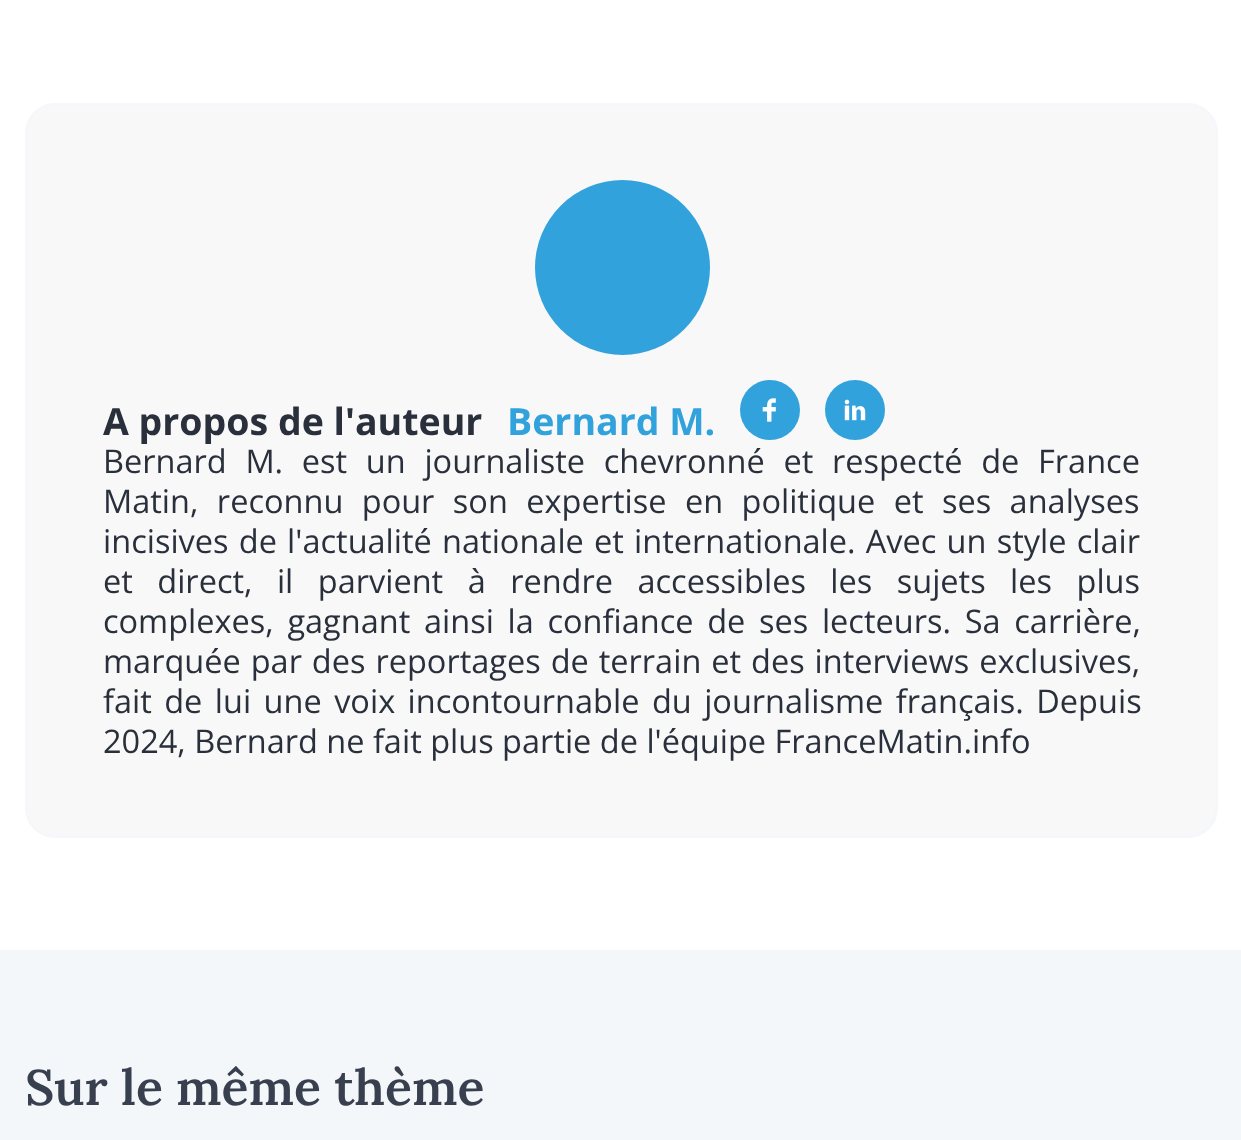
<svg xmlns="http://www.w3.org/2000/svg" width="1241" height="1140" viewBox="0 0 1241 1140">
  <style>
    .t1 { font: bold 37.5px Open Sans; fill: #2a303b; }
    .t2 { font: bold 37.5px Open Sans; fill: #32a2dc; }
    .t3 { font: 32.5px Open Sans; fill: #2a303b; }
    .t4 { font: 600 50px Lora; fill: #383f4e; }
  </style>
  <rect width="100%" height="100%" fill="#f4f7fa"/>
  <rect x="0" y="0" width="1241" height="950" fill="#fff"/>
  <rect x="26.5" y="104.5" width="1190" height="732" rx="28.5" fill="#f8f8f8" stroke="#f5f7fb" stroke-width="3"/>
  <circle cx="622.5" cy="267.5" r="87.5" fill="#32a2dc"/>
  <text x="103" y="435" class="t1">A propos de l'auteur</text>
  <text x="507" y="435" class="t2">Bernard M.</text>
  <circle cx="770" cy="410" r="30" fill="#32a2dc"/>
  <image x="762" y="398" width="14" height="24" href="images/1.png"/>
  <circle cx="855" cy="410" r="30" fill="#32a2dc"/>
  <image x="844" y="399" width="22" height="22" href="images/2.png"/>
  <text x="103" y="473" word-spacing="10.25" class="t3">Bernard M. est un journaliste chevronné et respecté de France</text>
  <text x="103" y="513" word-spacing="10" class="t3">Matin, reconnu pour son expertise en politique et ses analyses</text>
  <text x="103" y="553" word-spacing="1.75" class="t3">incisives de l'actualité nationale et internationale. Avec un style clair</text>
  <text x="103" y="593" word-spacing="16" class="t3">et direct, il parvient à rendre accessibles les sujets les plus</text>
  <text x="103" y="633" word-spacing="5.25" class="t3">complexes, gagnant ainsi la confiance de ses lecteurs. Sa carrière,</text>
  <text x="103" y="673" word-spacing="1.5" class="t3">marquée par des reportages de terrain et des interviews exclusives,</text>
  <text x="103" y="713" word-spacing="4" class="t3">fait de lui une voix incontournable du journalisme français. Depuis</text>
  <text x="103" y="753" class="t3">2024, Bernard ne fait plus partie de l'équipe FranceMatin.info</text>
  <text x="25" y="1105" class="t4">Sur le même thème</text>
</svg>
